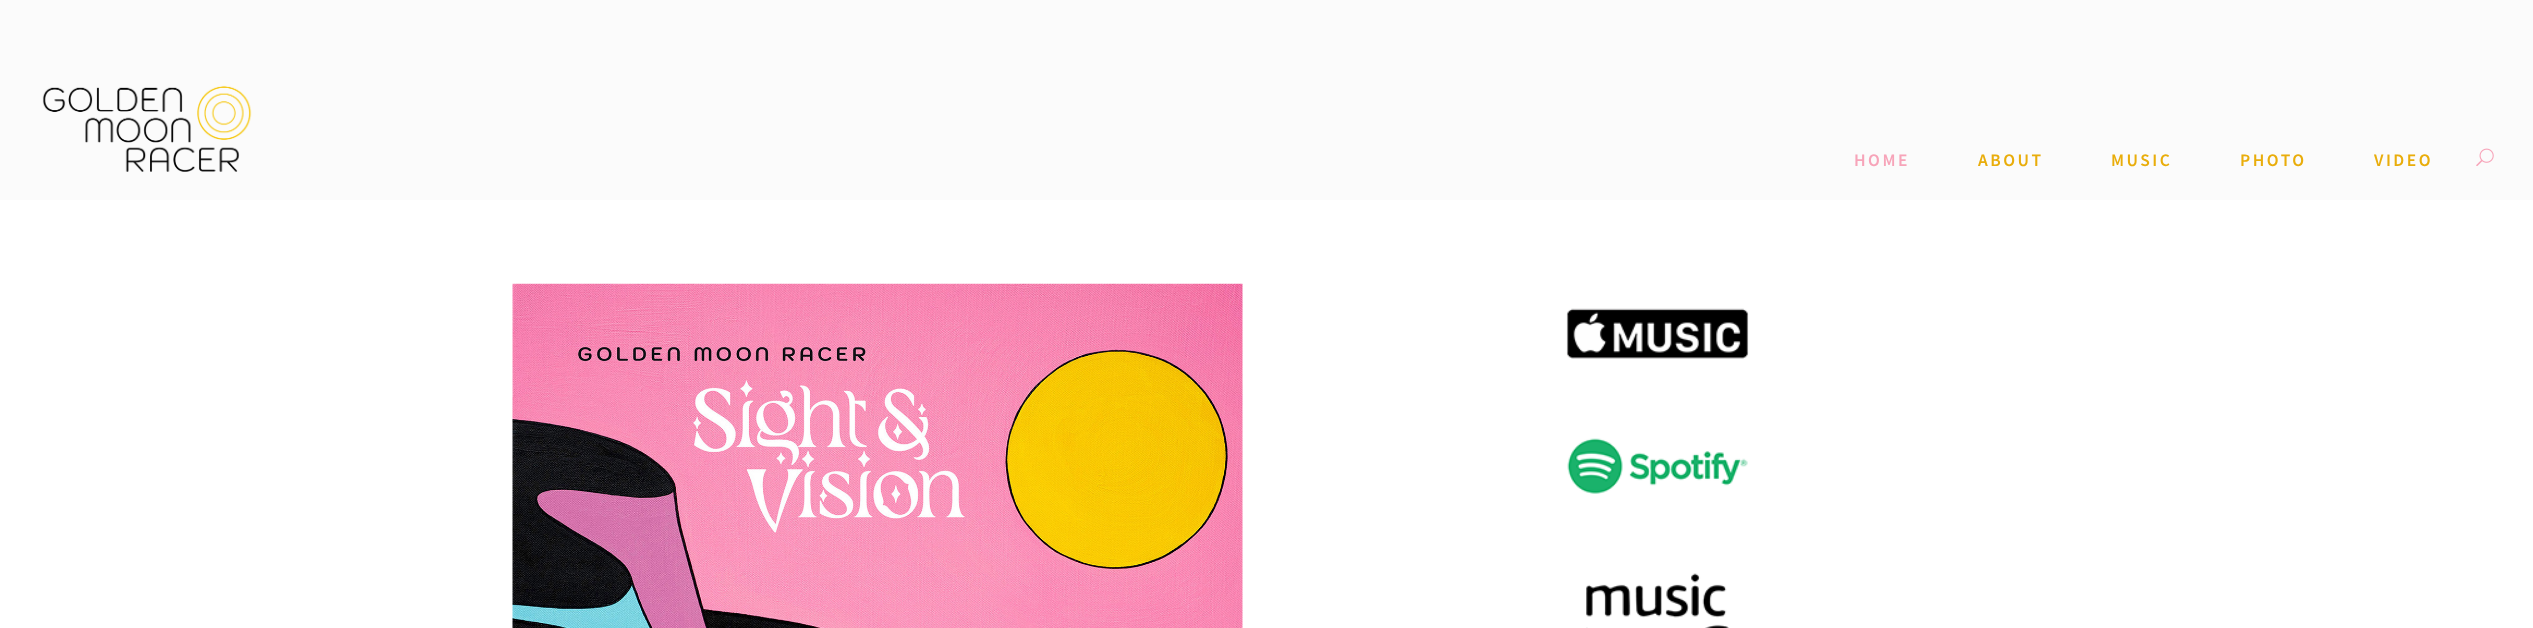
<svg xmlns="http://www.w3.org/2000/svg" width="2533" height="628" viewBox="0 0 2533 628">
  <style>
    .t1 { font: 600 17.5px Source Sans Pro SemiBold; letter-spacing: 2.5px; fill: #f7a4b9; }
    .t2 { font: 600 17.5px Source Sans Pro SemiBold; letter-spacing: 2.5px; fill: #e9ad0b; }
  </style>
  <rect width="100%" height="100%" fill="#fff"/>
  <rect x="0" y="0" width="2533" height="200" fill="#fbfbfb"/>
  <image x="42" y="85" width="210" height="87" href="images/1.png"/>
  <text x="1854" y="166" class="t1">HOME</text>
  <text x="1978" y="166" class="t2">ABOUT</text>
  <text x="2111" y="166" class="t2">MUSIC</text>
  <text x="2240" y="166" class="t2">PHOTO</text>
  <text x="2374" y="166" class="t2">VIDEO</text>
  <image x="2476" y="148" width="18" height="18" href="images/2.png"/>
  <image x="512" y="283" width="731" height="345" href="images/3.png"/>
  <image x="1566" y="308" width="183" height="51" href="images/4.png"/>
  <image x="1567" y="438" width="181" height="56" href="images/5.png"/>
  <image x="1586" y="573" width="143" height="55" href="images/6.png"/>
</svg>
